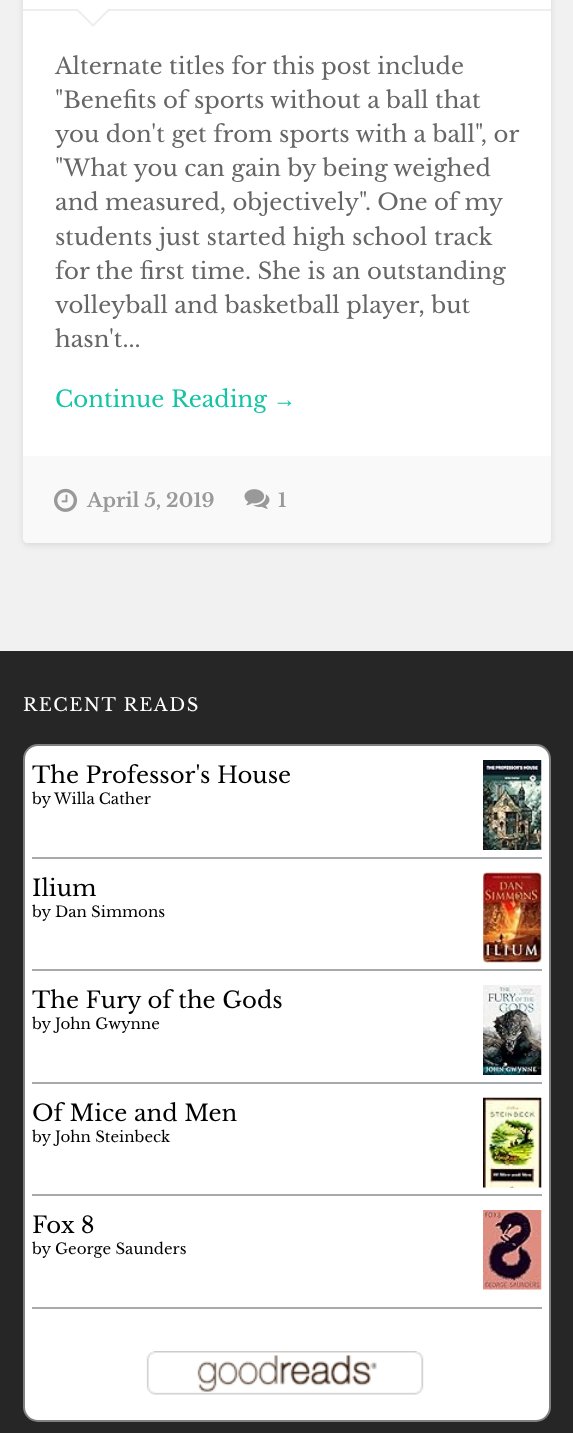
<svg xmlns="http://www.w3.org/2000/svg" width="573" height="1433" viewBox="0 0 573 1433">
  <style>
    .t1 { font: 22.8px Libre Baskerville; fill: #666; }
    .t2 { font: 22.8px Libre Baskerville; fill: #13c4a5; }
    .t3 { font: 22.8px Liberation Serif; fill: #13c4a5; }
    .t4 { font: bold 19.25px Libre Baskerville; fill: #999; }
    .t5 { font: 18px Libre Baskerville; letter-spacing: 1.5px; fill: #fff; }
    .t6 { font: 22.8px Libre Baskerville; fill: #000; }
    .t7 { font: 15px Libre Baskerville; fill: #000; }
  </style>
  <rect width="100%" height="100%" fill="#f1f1f1"/>
  <rect x="23" y="-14" width="528" height="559" rx="5" fill="#0000001a" filter="blur(3px)"/>
  <rect x="23" y="-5" width="528" height="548" rx="5" fill="#fff"/>
  <rect x="23" y="9" width="528" height="2" fill="#eee"/>
  <path d="M75 9H111L93 27Z" fill="#eee"/>
  <path d="M76.5 7.5H109.5L93 24Z" fill="#fff"/>
  <text x="55" y="74" class="t1">Alternate titles for this post include</text>
  <text x="55" y="108" class="t1">"Benefits of sports without a ball that</text>
  <text x="55" y="142" class="t1">you don't get from sports with a ball", or</text>
  <text x="55" y="176" class="t1">"What you can gain by being weighed</text>
  <text x="55" y="210" word-spacing="-0.25" class="t1">and measured, objectively". One of my</text>
  <text x="55" y="245" class="t1">students just started high school track</text>
  <text x="55" y="279" class="t1">for the first time. She is an outstanding</text>
  <text x="55" y="313" class="t1">volleyball and basketball player, but</text>
  <text x="55" y="347" class="t1">hasn't...</text>
  <text x="55" y="407" class="t2">Continue Reading</text>
  <text x="273" y="407" class="t3">→</text>
  <path d="M23 456H551V538C551 541 549 543 546 543H28C25 543 23 541 23 538Z" fill="#f9f9f9"/>
  <image x="54" y="488" width="23" height="24" href="images/1.png"/>
  <text x="87" y="507" class="t4">April 5, 2019</text>
  <image x="244" y="489" width="26" height="20" href="images/2.png"/>
  <text x="278" y="507" class="t4">1</text>
  <rect x="0" y="651" width="573" height="782" fill="#262626"/>
  <text x="23" y="711" class="t5">RECENT READS</text>
  <rect x="24" y="745" width="526" height="676" rx="14" fill="#fff" stroke="#808080" stroke-width="2"/>
  <rect x="32" y="857" width="510" height="2" fill="#a7aaad"/>
  <text x="32" y="783" class="t6">The Professor's House</text>
  <image x="483" y="760" width="59" height="90" href="images/3.png"/>
  <text x="32" y="804" class="t7">by</text>
  <text x="54" y="804" class="t7">Willa Cather</text>
  <rect x="32" y="969" width="510" height="2" fill="#a7aaad"/>
  <text x="32" y="896" class="t6">Ilium</text>
  <image x="483" y="872" width="59" height="91" href="images/4.png"/>
  <text x="32" y="917" class="t7">by Dan Simmons</text>
  <rect x="32" y="1082" width="510" height="2" fill="#a7aaad"/>
  <text x="32" y="1008" class="t6">The Fury of the Gods</text>
  <image x="483" y="985" width="59" height="90" href="images/5.png"/>
  <text x="32" y="1029" class="t7">by John Gwynne</text>
  <rect x="32" y="1194" width="510" height="2" fill="#a7aaad"/>
  <text x="32" y="1121" class="t6">Of Mice and Men</text>
  <image x="483" y="1097" width="59" height="91" href="images/6.png"/>
  <text x="32" y="1142" class="t7">by John Steinbeck</text>
  <rect x="32" y="1307" width="510" height="2" fill="#a7aaad"/>
  <text x="32" y="1233" class="t6">Fox 8</text>
  <image x="483" y="1210" width="59" height="80" href="images/7.png"/>
  <text x="32" y="1254" class="t7">by George Saunders</text>
  <image x="146" y="1351" width="278" height="44" href="images/8.png"/>
</svg>
